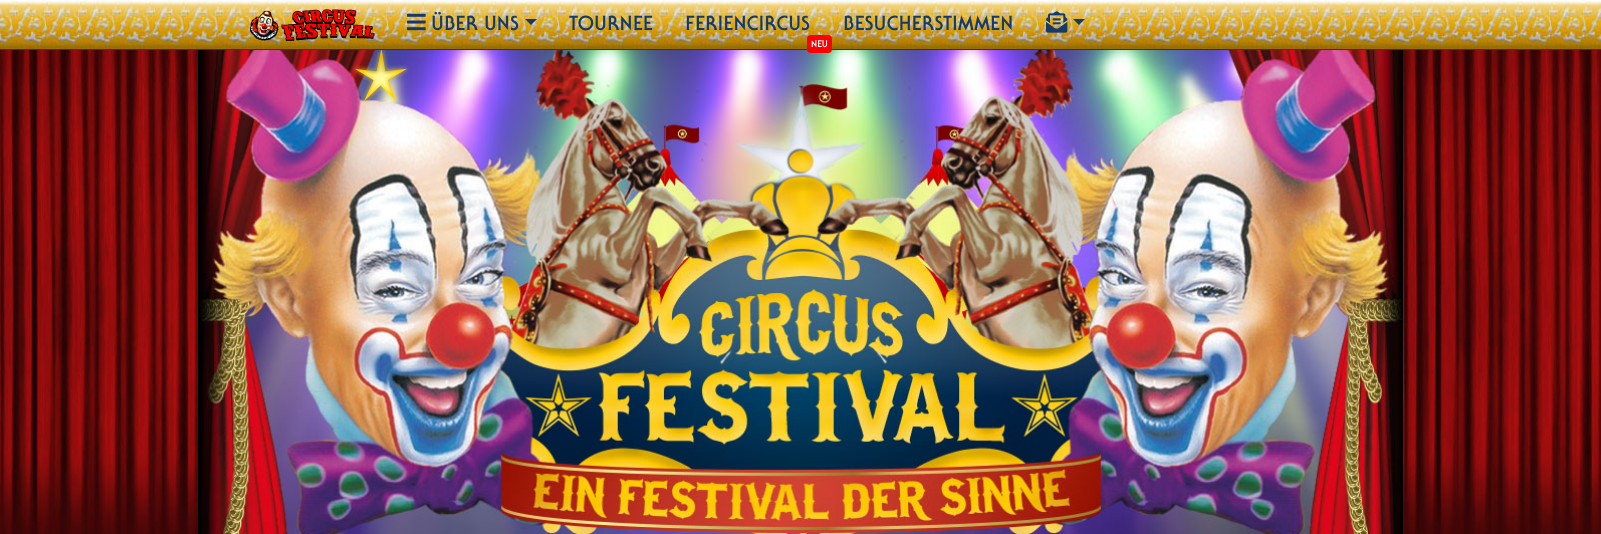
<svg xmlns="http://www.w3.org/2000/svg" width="1601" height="534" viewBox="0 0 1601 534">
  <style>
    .t1 { font: bold 21.25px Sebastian; fill: #133a6a; }
    .t2 { font: bold 10px Sebastian; fill: #fff; }
  </style>
  <rect width="100%" height="100%" fill="#fff"/>
  <image x="0" y="0" width="1601" height="49" href="images/1.png"/>
  <rect x="0" y="49" width="1601" height="1" fill="#133a6a"/>
  <image x="249" y="9" width="126" height="32" href="images/2.png"/>
  <image x="407" y="13" width="19" height="18" href="images/3.png"/>
  <text x="431" y="30" class="t1">ÜBER UNS</text>
  <path d="M525 19H537L531 25Z" fill="#133a6a"/>
  <text x="569" y="30" class="t1">TOURNEE</text>
  <text x="685" y="30" class="t1">FERIENCIRCUS</text>
  <image x="0" y="50" width="1601" height="484" href="images/5.png"/>
  <image x="198" y="50" width="1205" height="484" href="images/6.png"/>
  <rect x="807" y="35" width="25" height="18" rx="4" fill="#f00"/>
  <text x="811" y="47" class="t2">NEU</text>
  <text x="843" y="30" class="t1">BESUCHERSTIMMEN</text>
  <image x="1046" y="11" width="22" height="22" href="images/4.png"/>
  <path d="M1073 19H1085L1079 25Z" fill="#133a6a"/>
  <image x="352" y="50" width="58" height="54" href="images/7.png"/>
</svg>
